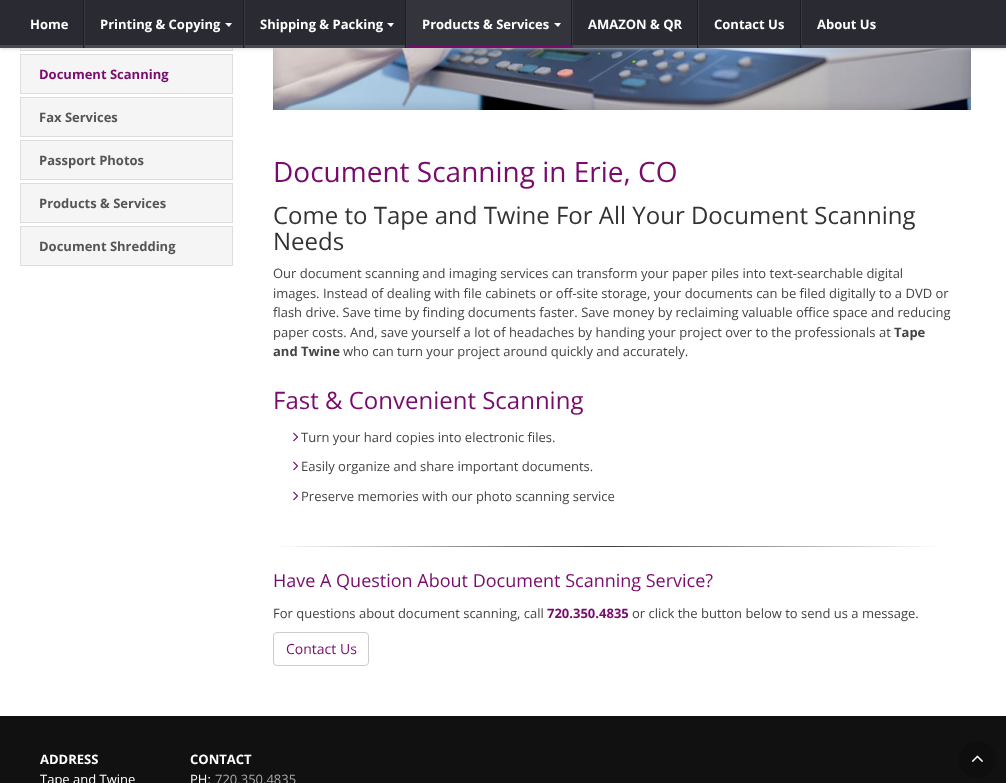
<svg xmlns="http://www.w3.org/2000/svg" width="1006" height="783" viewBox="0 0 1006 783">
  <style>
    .t1 { font: bold 13px Open Sans; fill: #fff; }
    .t2 { font: bold 13px Open Sans; fill: #780b6d; }
    .t3 { font: bold 13px Open Sans; fill: #555; }
    .t4 { font: 28px Open Sans; fill: #780b6d; }
    .t5 { font: 24px Open Sans; fill: #333; }
    .t6 { font: 13px Open Sans; fill: #444; }
    .t7 { font: bold 13px Open Sans; fill: #444; }
    .t8 { font: 24px Open Sans; fill: #780b6d; }
    .t9 { font: 18px Open Sans; fill: #780b6d; }
    .t10 { font: 14px Open Sans; fill: #780b6d; }
    .t11 { font: 13px Open Sans; fill: #fff; }
    .t12 { font: 13px Open Sans; fill: #a8a8a8; }
  </style>
  <defs>
    <linearGradient id="g1" gradientUnits="userSpaceOnUse" x1="273" y1="547" x2="941" y2="547"><stop offset="0" stop-color="#fff"/><stop offset="0.5" stop-color="#404040"/><stop offset="1" stop-color="#fff"/></linearGradient>
  </defs>
  <rect width="100%" height="100%" fill="#fff"/>
  <rect x="21" y="48" width="211" height="2" fill="#f5f5f5"/>
  <rect x="20.5" y="11.5" width="212" height="39" fill="none" stroke="#ddd"/>
  <rect x="20.5" y="54.5" width="212" height="39" fill="#f5f5f5" stroke="#ddd"/>
  <image x="273" y="48" width="698" height="62" href="images/3.png"/>
  <rect x="0" y="0" width="1006" height="48" fill="#ccc" filter="blur(2px)"/>
  <rect x="0" y="0" width="1006" height="45" fill="#292a32"/>
  <rect x="0" y="45" width="1006" height="3" fill="#484950"/>
  <rect x="83" y="0" width="1" height="48" fill="#1e1f25"/>
  <text x="30" y="29" class="t1">Home</text>
  <rect x="243" y="0" width="1" height="48" fill="#1e1f25"/>
  <rect x="84" y="0" width="1" height="48" fill="#393a41"/>
  <text x="100" y="29" class="t1">Printing &amp; Copying</text>
  <image x="225" y="23" width="7" height="4" href="images/1.png"/>
  <rect x="405" y="0" width="1" height="48" fill="#1e1f25"/>
  <rect x="244" y="0" width="1" height="48" fill="#393a41"/>
  <text x="260" y="29" class="t1">Shipping &amp; Packing</text>
  <image x="387" y="23" width="7" height="4" href="images/1.png"/>
  <rect x="406" y="0" width="166" height="48" fill="#ffffff0d"/>
  <path d="M572 0V48L571 45V0Z" fill="#1e1f25"/>
  <path d="M572 48H406L407 45H571Z" fill="#780b6d"/>
  <path d="M406 48V0H407V45Z" fill="#393a41"/>
  <text x="422" y="29" class="t1">Products &amp; Services</text>
  <image x="554" y="23" width="7" height="4" href="images/2.png"/>
  <rect x="697" y="0" width="1" height="48" fill="#1e1f25"/>
  <rect x="572" y="0" width="1" height="48" fill="#393a41"/>
  <text x="588" y="29" class="t1">AMAZON &amp; QR</text>
  <rect x="800" y="0" width="1" height="48" fill="#1e1f25"/>
  <rect x="698" y="0" width="1" height="48" fill="#393a41"/>
  <text x="714" y="29" class="t1">Contact Us</text>
  <rect x="801" y="0" width="1" height="48" fill="#393a41"/>
  <text x="817" y="29" class="t1">About Us</text>
  <text x="39" y="79" class="t2">Document Scanning</text>
  <rect x="20.5" y="97.5" width="212" height="39" fill="#f5f5f5" stroke="#ddd"/>
  <text x="39" y="122" class="t3">Fax Services</text>
  <rect x="20.5" y="140.5" width="212" height="39" fill="#f5f5f5" stroke="#ddd"/>
  <text x="39" y="165" class="t3">Passport Photos</text>
  <rect x="20.5" y="183.5" width="212" height="39" fill="#f5f5f5" stroke="#ddd"/>
  <text x="39" y="208" class="t3">Products &amp; Services</text>
  <rect x="20.5" y="226.5" width="212" height="39" fill="#f5f5f5" stroke="#ddd"/>
  <text x="39" y="251" class="t3">Document Shredding</text>
  <text x="273" y="182" class="t4">Document Scanning in Erie, CO</text>
  <text x="273" y="224" class="t5">Come to Tape and Twine For All Your Document Scanning</text>
  <text x="273" y="250" class="t5">Needs</text>
  <text x="273" y="278" class="t6">Our document scanning and imaging services can transform your paper piles into text-searchable digital</text>
  <text x="273" y="298" class="t6">images. Instead of dealing with file cabinets or off-site storage, your documents can be filed digitally to a DVD or</text>
  <text x="273" y="317" class="t6">flash drive. Save time by finding documents faster. Save money by reclaiming valuable office space and reducing</text>
  <text x="273" y="337" class="t6">paper costs. And, save yourself a lot of headaches by handing your project over to the professionals at</text>
  <text x="894" y="337" class="t7">Tape</text>
  <text x="273" y="356" class="t7">and Twine</text>
  <text x="343" y="356" class="t6">who can turn your project around quickly and accurately.</text>
  <text x="273" y="409" class="t8">Fast &amp; Convenient Scanning</text>
  <image x="293" y="432" width="6" height="10" href="images/4.png"/>
  <text x="301" y="442" class="t6">Turn your hard copies into electronic files.</text>
  <image x="293" y="461" width="6" height="10" href="images/4.png"/>
  <text x="301" y="471" class="t6">Easily organize and share important documents.</text>
  <image x="293" y="491" width="6" height="10" href="images/4.png"/>
  <text x="301" y="501" class="t6">Preserve memories with our photo scanning service</text>
  <rect x="273" y="546" width="668" height="1" fill="url(#g1)"/>
  <text x="273" y="587" class="t9">Have A Question About Document Scanning Service?</text>
  <text x="273" y="618" class="t6">For questions about document scanning, call</text>
  <text x="547" y="618" class="t2">720.350.4835</text>
  <text x="632" y="618" class="t6">or click the button below to send us a message.</text>
  <rect x="273.5" y="632.5" width="95" height="33" rx="3.5" fill="none" stroke="#ccc"/>
  <text x="286" y="654" class="t10">Contact Us</text>
  <rect x="0" y="716" width="1006" height="67" fill="#111"/>
  <text x="40" y="764" class="t1">ADDRESS</text>
  <text x="40" y="784" class="t11">Tape and Twine</text>
  <text x="190" y="764" class="t1">CONTACT</text>
  <text x="190" y="784" class="t11">PH:</text>
  <text x="215" y="784" class="t12">720.350.4835</text>
  <circle cx="977.5" cy="759.5" r="18.5" fill="#0e0e0e"/>
  <image x="971" y="755" width="12" height="7" href="images/5.png"/>
</svg>
